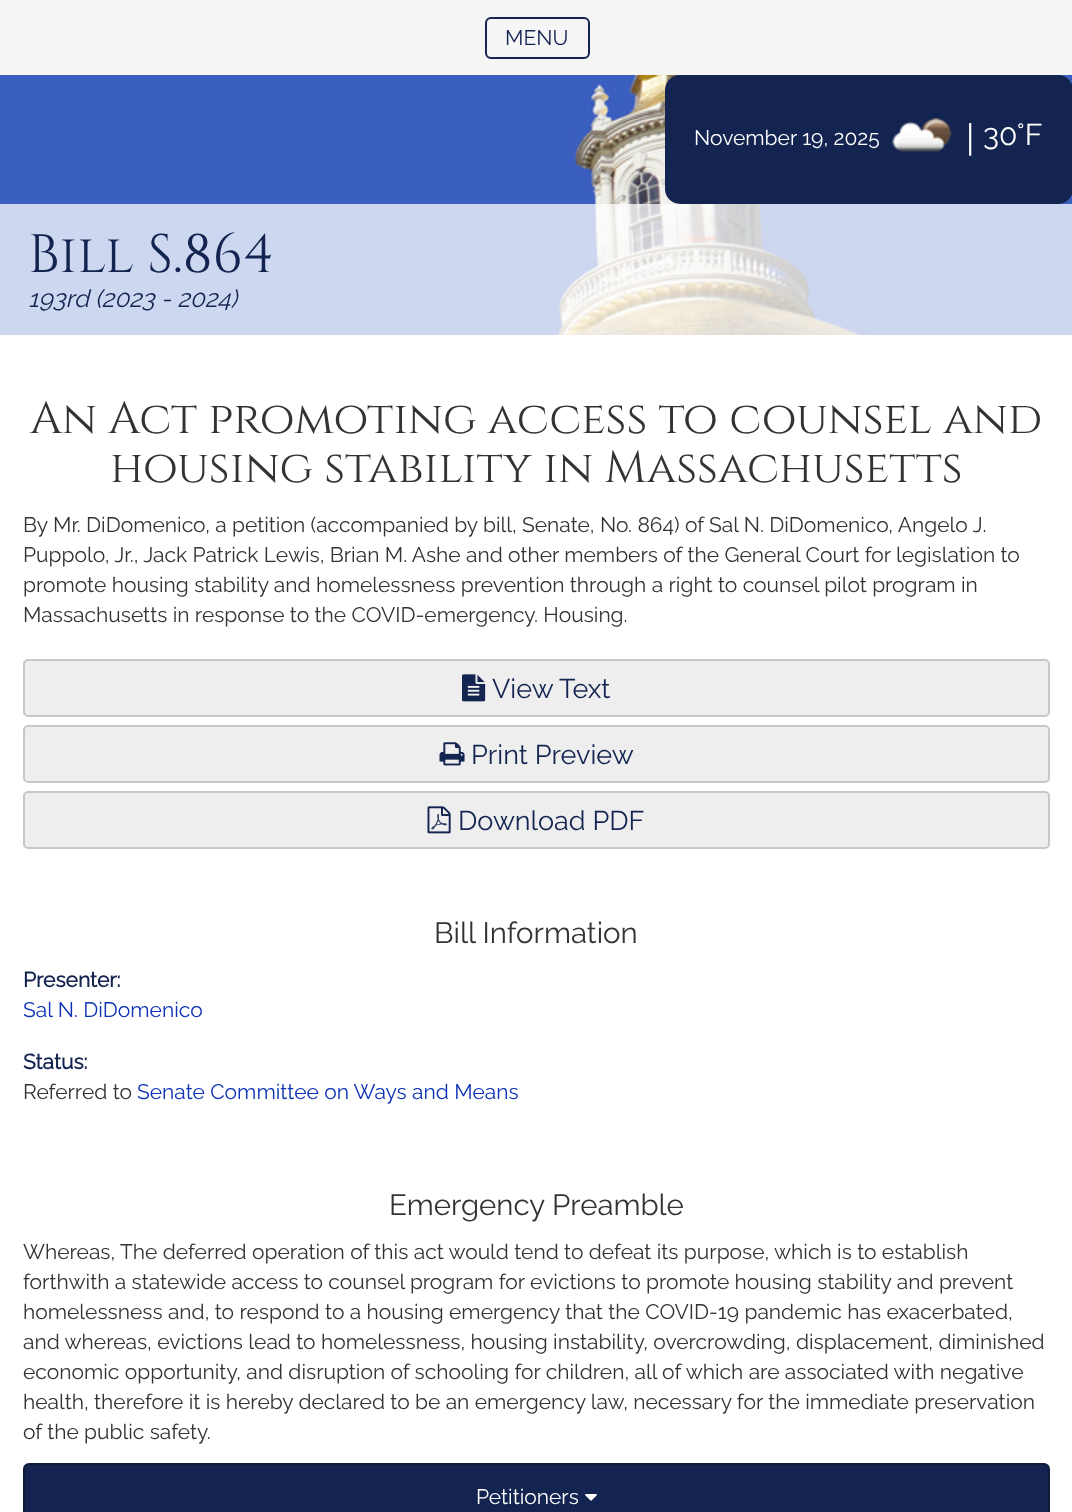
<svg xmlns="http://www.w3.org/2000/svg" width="1072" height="1512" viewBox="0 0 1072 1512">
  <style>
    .t1 { font: 100 21px Raleway; fill: #132450; }
    .t2 { font: 100 21px Raleway; fill: #fff; }
    .t3 { font: 100 36px Raleway; fill: #fff; }
    .t4 { font: 100 30px Raleway; fill: #fff; }
    .t5 { font: 54px Cinzel; fill: #132450; }
    .t6 { font: italic 100 24.25px Raleway; fill: #132450; }
    .t7 { font: 45px Cinzel; fill: #333; }
    .t8 { font: 100 21px Raleway; fill: #333; }
    .t9 { font: 100 27px Raleway; fill: #132450; }
    .t10 { font: 100 29.4px Raleway; fill: #333; }
    .t11 { font: bold 21px Raleway; fill: #132450; }
    .t12 { font: 100 21px Raleway; fill: #0d32b6; }
  </style>
  <rect width="100%" height="100%" fill="#fff"/>
  <image x="0" y="75" width="1072" height="260" href="images/1.png"/>
  <rect x="0" y="0" width="1072" height="75" fill="#f5f5f5"/>
  <rect x="486" y="18" width="103" height="40" rx="5" fill="none" stroke="#132450" stroke-width="2"/>
  <text x="505" y="45" class="t1">MENU</text>
  <rect x="665" y="75" width="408" height="129" rx="15" fill="#132450"/>
  <text x="694" y="145" class="t2">November 19, 2025</text>
  <image x="892" y="118" width="60" height="34" href="images/2.png"/>
  <text x="966" y="151" class="t3">|</text>
  <text x="983" y="145" class="t4">30°F</text>
  <rect x="0" y="204" width="1072" height="131" fill="#ffffffbf"/>
  <text x="28" y="272" class="t5">Bill S.864</text>
  <text x="28" y="307" class="t6">193rd (2023 - 2024)</text>
  <text x="30" y="433" class="t7">An Act promoting access to counsel and</text>
  <text x="110" y="482" class="t7">housing stability in Massachusetts</text>
  <text x="23" y="532" class="t8">By Mr. DiDomenico, a petition (accompanied by bill, Senate, No. 864) of Sal N. DiDomenico, Angelo J.</text>
  <text x="23" y="562" class="t8">Puppolo, Jr., Jack Patrick Lewis, Brian M. Ashe and other members of the General Court for legislation to</text>
  <text x="23" y="592" class="t8">promote housing stability and homelessness prevention through a right to counsel pilot program in</text>
  <text x="23" y="622" class="t8">Massachusetts in response to the COVID-emergency. Housing.</text>
  <rect x="24" y="660" width="1025" height="56" rx="4" fill="#eee" stroke="#c8c8c8" stroke-width="2"/>
  <image x="462" y="674" width="24" height="28" href="images/3.png"/>
  <text x="492" y="698" class="t9">View Text</text>
  <rect x="24" y="726" width="1025" height="56" rx="4" fill="#eee" stroke="#c8c8c8" stroke-width="2"/>
  <image x="439" y="742" width="26" height="24" href="images/4.png"/>
  <text x="471" y="764" class="t9">Print Preview</text>
  <rect x="24" y="792" width="1025" height="56" rx="4" fill="#eee" stroke="#c8c8c8" stroke-width="2"/>
  <image x="427" y="806" width="24" height="28" href="images/5.png"/>
  <text x="458" y="830" class="t9">Download PDF</text>
  <text x="434" y="943" class="t10">Bill Information</text>
  <text x="23" y="987" class="t11">Presenter:</text>
  <text x="23" y="1017" class="t12">Sal N. DiDomenico</text>
  <text x="23" y="1069" class="t11">Status:</text>
  <text x="23" y="1099" class="t8">Referred to</text>
  <text x="137" y="1099" class="t12">Senate Committee on Ways and Means</text>
  <text x="389" y="1215" class="t10">Emergency Preamble</text>
  <text x="23" y="1259" class="t8">Whereas, The deferred operation of this act would tend to defeat its purpose, which is to establish</text>
  <text x="23" y="1289" class="t8">forthwith a statewide access to counsel program for evictions to promote housing stability and prevent</text>
  <text x="23" y="1319" class="t8">homelessness and, to respond to a housing emergency that the COVID-19 pandemic has exacerbated,</text>
  <text x="23" y="1349" class="t8">and whereas, evictions lead to homelessness, housing instability, overcrowding, displacement, diminished</text>
  <text x="23" y="1379" class="t8">economic opportunity, and disruption of schooling for children, all of which are associated with negative</text>
  <text x="23" y="1409" class="t8">health, therefore it is hereby declared to be an emergency law, necessary for the immediate preservation</text>
  <text x="23" y="1439" class="t8">of the public safety.</text>
  <rect x="24" y="1464" width="1025" height="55" rx="5" fill="#132450" stroke="#0e1b3b" stroke-width="2"/>
  <text x="476" y="1504" class="t2">Petitioners</text>
  <image x="585" y="1494" width="12" height="7" href="images/6.png"/>
</svg>
